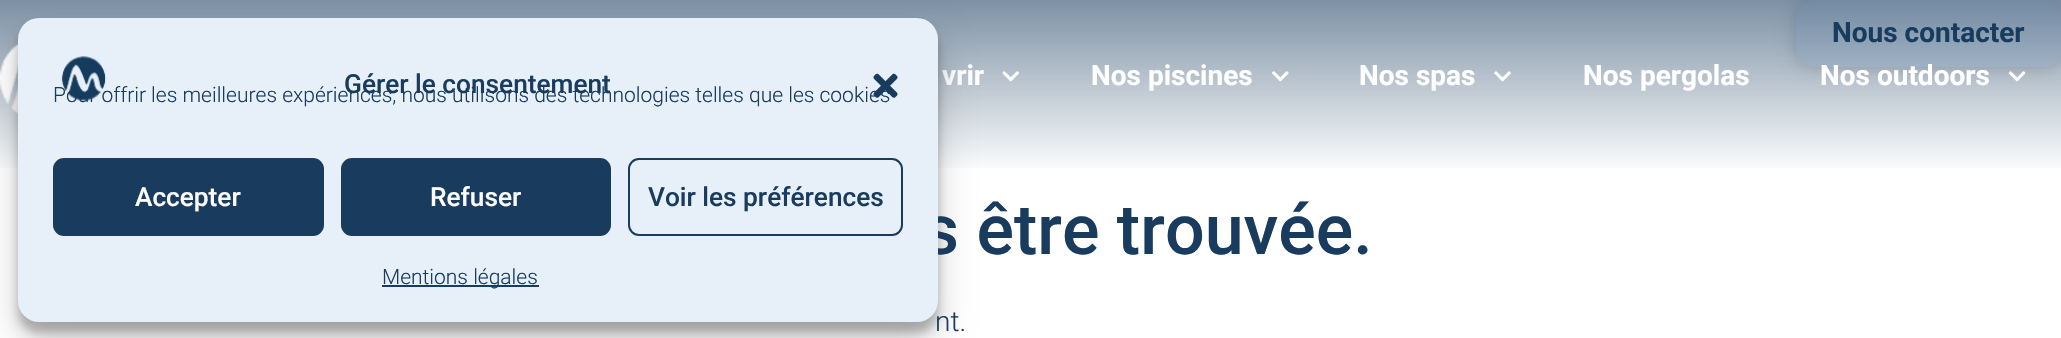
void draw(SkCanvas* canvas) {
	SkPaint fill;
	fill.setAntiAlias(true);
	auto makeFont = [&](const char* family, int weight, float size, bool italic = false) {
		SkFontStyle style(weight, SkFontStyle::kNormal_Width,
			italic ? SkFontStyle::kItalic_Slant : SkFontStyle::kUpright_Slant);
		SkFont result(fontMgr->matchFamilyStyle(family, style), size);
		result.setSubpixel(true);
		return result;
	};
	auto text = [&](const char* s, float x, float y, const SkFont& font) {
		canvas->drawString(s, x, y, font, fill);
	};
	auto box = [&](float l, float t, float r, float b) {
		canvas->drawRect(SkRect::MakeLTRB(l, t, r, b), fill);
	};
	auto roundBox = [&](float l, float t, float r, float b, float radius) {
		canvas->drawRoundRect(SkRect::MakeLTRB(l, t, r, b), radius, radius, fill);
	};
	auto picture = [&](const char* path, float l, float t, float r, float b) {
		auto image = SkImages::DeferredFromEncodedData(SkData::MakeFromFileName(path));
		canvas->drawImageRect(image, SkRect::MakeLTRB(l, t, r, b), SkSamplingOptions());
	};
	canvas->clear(0xFFFFFFFF);
	fill.setColor(0x33000000);
	fill.setMaskFilter(SkMaskFilter::MakeBlur(kNormal_SkBlurStyle, 9));
	canvas->drawRoundRect(SkRect::MakeLTRB(1796, 0, 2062, 67), 18, 18, fill);
	fill.setMaskFilter(nullptr);
	fill.setColor(0xFFE7EFF8);
	canvas->drawRoundRect(SkRect::MakeLTRB(1797, 1, 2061, 66), 17, 17, fill);
	fill.setStyle(SkPaint::kStroke_Style);
	fill.setStrokeWidth(2);
	canvas->drawRoundRect(SkRect::MakeLTRB(1797, 1, 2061, 66), 17, 17, fill);
	auto font1 = makeFont("Roboto", 700, 28);
	fill.setStyle(SkPaint::kFill_Style);
	fill.setColor(0xFF183B5E);
	text("Nous contacter", 1832, 42, font1);
	{
		const SkColor colors[] = {0x9C183B5E, 0x00183B5E};
		const float stops[] = {0, 1};
		const SkPoint ends[] = {{1031, -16}, {1031, 175}};
		fill.setShader(SkGradientShader::MakeLinear(ends, colors, stops, 2, SkTileMode::kClamp));
		fill.setAlpha(255);
	}
	box(0, 0, 2061, 168);
	picture("image0.png", 0, 43, 18, 116);
	fill.setShader(nullptr);
	fill.setColor(0xFFFFFFFF);
	text("vrir", 942, 85, font1);
	picture("image1.png", 1002, 71, 1019, 82);
	text("Nos piscines", 1091, 85, font1);
	picture("image2.png", 1272, 71, 1289, 82);
	text("Nos spas", 1359, 85, font1);
	picture("image3.png", 1494, 71, 1511, 82);
	text("Nos pergolas", 1583, 85, font1);
	text("Nos outdoors", 1820, 85, font1);
	picture("image4.png", 2008, 71, 2026, 82);
	fill.setColor(0x3B000000);
	fill.setMaskFilter(SkMaskFilter::MakeBlur(kNormal_SkBlurStyle, 5));
	canvas->drawRoundRect(SkRect::MakeLTRB(18, 28, 938, 333), 21, 21, fill);
	fill.setMaskFilter(nullptr);
	fill.setColor(0x30000000);
	fill.setMaskFilter(SkMaskFilter::MakeBlur(kNormal_SkBlurStyle, 17.5f));
	canvas->drawRoundRect(SkRect::MakeLTRB(18, 35, 938, 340), 21, 21, fill);
	fill.setMaskFilter(nullptr);
	auto font2 = makeFont("Roboto", 500, 70);
	fill.setColor(0xFF183B5E);
	text("s être trouvée.", 923, 254, font2);
	auto font3 = makeFont("Roboto", 300, 28);
	text("nt.", 935, 331, font3);
	fill.setColor(0xFFE7EFF8);
	roundBox(18, 18, 938, 322, 21);
	picture("image6.png", 873, 73, 898, 98);
	picture("image5.png", 61, 56, 106, 102);
	auto font4 = makeFont("Roboto", 300, 21);
	fill.setColor(0xFF183B5E);
	text("Pour offrir les meilleures expériences, nous utilisons des technologies telles que les cookies", 53, 102, font4);
	box(382, 285, 539, 287);
	text("Mentions légales", 382, 284, font4);
	fill.setStyle(SkPaint::kStroke_Style);
	canvas->drawRoundRect(SkRect::MakeLTRB(629, 159, 902, 235), 10, 10, fill);
	auto font5 = makeFont("Roboto", 500, 26.25f);
	fill.setStyle(SkPaint::kFill_Style);
	text("Voir les préférences", 648, 206, font5);
	canvas->drawRoundRect(SkRect::MakeLTRB(342, 159, 610, 235), 10, 10, fill);
	fill.setStyle(SkPaint::kStroke_Style);
	canvas->drawRoundRect(SkRect::MakeLTRB(342, 159, 610, 235), 10, 10, fill);
	fill.setStyle(SkPaint::kFill_Style);
	fill.setColor(0xFFFFFFFF);
	text("Refuser", 430, 206, font5);
	fill.setColor(0xFF183B5E);
	canvas->drawRoundRect(SkRect::MakeLTRB(54, 159, 323, 235), 10, 10, fill);
	fill.setStyle(SkPaint::kStroke_Style);
	canvas->drawRoundRect(SkRect::MakeLTRB(54, 159, 323, 235), 10, 10, fill);
	fill.setStyle(SkPaint::kFill_Style);
	fill.setColor(0xFFFFFFFF);
	text("Accepter", 135, 206, font5);
	fill.setColor(0xFF183B5E);
	text("Gérer le consentement", 344, 93, font5);
}
